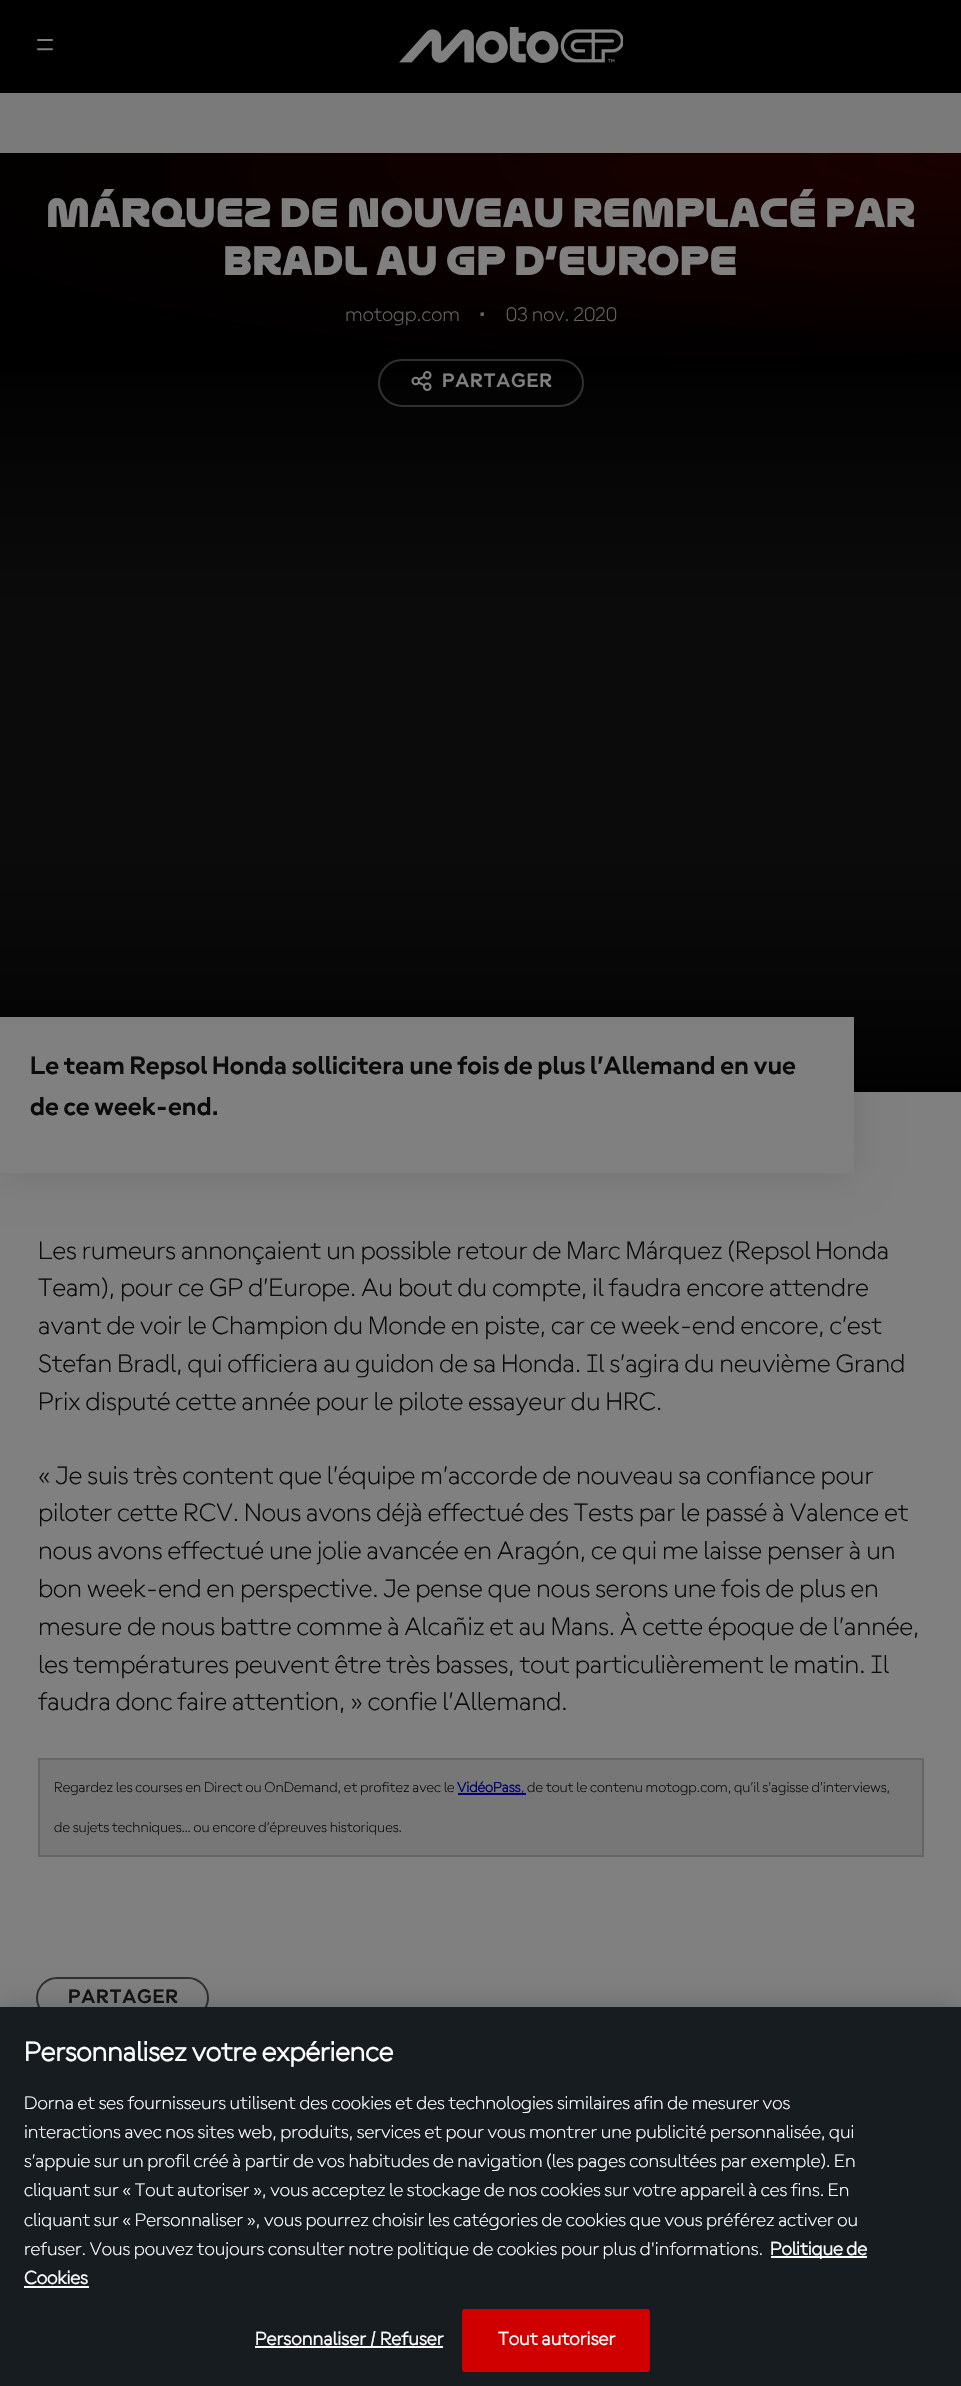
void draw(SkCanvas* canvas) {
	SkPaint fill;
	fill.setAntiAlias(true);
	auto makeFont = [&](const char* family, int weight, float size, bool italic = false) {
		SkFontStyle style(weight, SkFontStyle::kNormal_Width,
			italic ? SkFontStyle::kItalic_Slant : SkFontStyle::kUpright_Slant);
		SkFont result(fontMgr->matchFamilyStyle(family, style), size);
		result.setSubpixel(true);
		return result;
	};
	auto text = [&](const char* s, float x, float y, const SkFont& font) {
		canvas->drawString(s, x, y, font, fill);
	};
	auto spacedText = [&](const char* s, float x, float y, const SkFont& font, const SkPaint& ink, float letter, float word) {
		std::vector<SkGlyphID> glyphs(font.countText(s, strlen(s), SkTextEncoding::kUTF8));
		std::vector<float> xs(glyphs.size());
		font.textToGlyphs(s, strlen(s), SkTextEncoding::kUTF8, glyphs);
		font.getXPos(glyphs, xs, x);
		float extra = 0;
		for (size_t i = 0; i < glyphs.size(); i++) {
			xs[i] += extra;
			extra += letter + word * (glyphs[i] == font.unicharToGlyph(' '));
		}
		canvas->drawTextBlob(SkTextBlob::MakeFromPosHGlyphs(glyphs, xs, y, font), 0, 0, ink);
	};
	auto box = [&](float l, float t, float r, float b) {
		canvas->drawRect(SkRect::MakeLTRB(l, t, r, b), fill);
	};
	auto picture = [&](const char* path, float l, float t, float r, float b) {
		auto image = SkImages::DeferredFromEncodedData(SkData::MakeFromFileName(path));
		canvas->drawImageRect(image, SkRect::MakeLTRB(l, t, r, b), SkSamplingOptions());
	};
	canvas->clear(0xFF7A7A7A);
	fill.setColor(0xFF000000);
	box(0, 0, 961, 93);
	picture("image0.png", 37, 39, 53, 51);
	picture("image1.png", 399, 27, 623, 63);
	fill.setColor(0xFF808080);
	box(0, 1092, 961, 2007);
	{
		const SkColor colors[] = {0xFF0B0100, 0xFF000000};
		const float stops[] = {0, 1};
		SkMatrix m = SkMatrix::Translate(733, 175).preScale(969, 212);
		fill.setShader(SkGradientShader::MakeRadial({0, 0}, 1, colors, stops, 2, SkTileMode::kClamp, 0, &m));
		fill.setAlpha(255);
	}
	box(0, 153, 961, 371);
	{
		const SkColor colors[] = {0x3B4A0201, 0x004A0201};
		const float stops[] = {0, 1};
		SkMatrix m = SkMatrix::Translate(962, 160).preScale(931, 203);
		fill.setShader(SkGradientShader::MakeRadial({0, 0}, 1, colors, stops, 2, SkTileMode::kClamp, 0, &m));
		fill.setAlpha(255);
	}
	box(166, 153, 961, 333);
	{
		const SkColor colors[] = {0xFF000000, 0xFF040303, 0xFF0B0B0B};
		const float stops[] = {0.16f, 0.28f, 1};
		const SkPoint ends[] = {{481, 310}, {481, 611}};
		fill.setShader(SkGradientShader::MakeLinear(ends, colors, stops, 3, SkTileMode::kClamp));
		fill.setAlpha(255);
	}
	box(0, 371, 961, 611);
	fill.setStyle(SkPaint::kStroke_Style);
	fill.setStrokeWidth(2);
	fill.setShader(nullptr);
	fill.setColor(0xFF303030);
	canvas->drawRoundRect(SkRect::MakeLTRB(379, 360, 583, 406), 23, 23, fill);
	picture("image2.png", 411, 371, 432, 391);
	fill.setStyle(SkPaint::kFill_Style);
	fill.setColor(0xFF0B0B0B);
	box(0, 611, 961, 852);
	{
		const SkColor colors[] = {0xFF000000, 0xFF040303, 0xFF0B0B0B};
		const float stops[] = {0.16f, 0.28f, 1};
		const SkPoint ends[] = {{481, 1152}, {481, 852}};
		fill.setShader(SkGradientShader::MakeLinear(ends, colors, stops, 3, SkTileMode::kClamp));
		fill.setAlpha(255);
	}
	box(0, 852, 961, 1092);
	fill.setShader(nullptr);
	fill.setColor(0x1A000000);
	fill.setMaskFilter(SkMaskFilter::MakeBlur(kNormal_SkBlurStyle, 17));
	canvas->drawRect(SkRect::MakeLTRB(0, 1019, 854, 1175), fill);
	fill.setMaskFilter(nullptr);
	fill.setColor(0xFF808080);
	box(0, 1017, 854, 1173);
	fill.setColor(0xFF777777);
	canvas->drawRect(SkRect::MakeLTRB(39, 1759, 923, 1856), fill);
	fill.setStyle(SkPaint::kStroke_Style);
	fill.setColor(0xFF666666);
	canvas->drawRect(SkRect::MakeLTRB(39, 1759, 923, 1856), fill);
	fill.setStyle(SkPaint::kFill_Style);
	fill.setColor(0xFF000077);
	box(458, 1793, 526, 1795);
	fill.setStyle(SkPaint::kStroke_Style);
	fill.setColor(0xFF303030);
	canvas->drawRoundRect(SkRect::MakeLTRB(37, 1978, 208, 2018), 20, 20, fill);
	fill.setStyle(SkPaint::kFill_Style);
	fill.setColor(0x33000000);
	fill.setMaskFilter(SkMaskFilter::MakeBlur(kNormal_SkBlurStyle, 13.5f));
	canvas->drawRect(SkRect::MakeLTRB(0, 2007, 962, 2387), fill);
	fill.setMaskFilter(nullptr);
	fill.setColor(0xFF171C21);
	box(0, 2007, 961, 2386);
	fill.setColor(0xFFFFFFFF);
	box(771, 2256, 867, 2258);
	box(24, 2286, 89, 2288);
	box(255, 2346, 443, 2348);
	fill.setColor(0xFFD00000);
	canvas->drawRoundRect(SkRect::MakeLTRB(463, 2310, 649, 2371), 2, 2, fill);
	fill.setStyle(SkPaint::kStroke_Style);
	canvas->drawRoundRect(SkRect::MakeLTRB(463, 2310, 649, 2371), 2, 2, fill);
	auto font1 = makeFont("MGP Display", 700, 36);
	fill.setStyle(SkPaint::kFill_Style);
	fill.setColor(0xFF808080);
	text("Márquez de nouveau remplacé par", 46, 227, font1);
	text("Bradl au GP d’Europe", 223, 275, font1);
	auto font2 = makeFont("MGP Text", 300, 21);
	fill.setColor(0xFF636363);
	text("motogp.com", 345, 321, font2);
	text("•", 479, 321, font2);
	text("03 nov. 2020", 506, 321, font2);
	auto font3 = makeFont("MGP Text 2", 700, 21);
	fill.setColor(0xFF808080);
	spacedText("PARTAGER", 442, 387, font3, fill, 0.75f, 0);
	auto font4 = makeFont("MGP Text 2", 700, 27);
	fill.setColor(0xFF0B0B0B);
	text("Le team Repsol Honda sollicitera une fois de plus l’Allemand en vue", 30, 1074, font4);
	text("de ce week-end.", 30, 1115, font4);
	auto font5 = makeFont("MGP Text", 300, 27);
	text("Les rumeurs annonçaient un possible retour de Marc Márquez (Repsol Honda", 38, 1259, font5);
	text("Team), pour ce GP d’Europe. Au bout du compte, il faudra encore attendre", 38, 1296, font5);
	text("avant de voir le Champion du Monde en piste, car ce week-end encore, c’est", 38, 1334, font5);
	text("Stefan Bradl, qui officiera au guidon de sa Honda. Il s’agira du neuvième Grand", 38, 1372, font5);
	text("Prix disputé cette année pour le pilote essayeur du HRC.", 38, 1410, font5);
	text("« Je suis très content que l’équipe m’accorde de nouveau sa confiance pour", 38, 1484, font5);
	text("piloter cette RCV. Nous avons déjà effectué des Tests par le passé à Valence et", 38, 1521, font5);
	text("nous avons effectué une jolie avancée en Aragón, ce qui me laisse penser à un", 38, 1559, font5);
	text("bon week-end en perspective. Je pense que nous serons une fois de plus en", 38, 1597, font5);
	text("mesure de nous battre comme à Alcañiz et au Mans. À cette époque de l’année,", 38, 1635, font5);
	text("les températures peuvent être très basses, tout particulièrement le matin. Il", 38, 1673, font5);
	text("faudra donc faire attention, » confie l’Allemand.", 38, 1710, font5);
	auto font6 = makeFont("MGP Text", 300, 15);
	text("Regardez les courses en Direct ou OnDemand, et profitez avec le", 54, 1792, font6);
	auto font7 = makeFont("MGP Text", 700, 15);
	fill.setColor(0xFF000077);
	text("VidéoPass", 457, 1792, font7);
	text(",", 521, 1792, font6);
	fill.setColor(0xFF0B0B0B);
	text("de tout le contenu motogp.com, qu’il s’agisse d’interviews,", 527, 1792, font6);
	text("de sujets techniques… ou encore d’épreuves historiques.", 54, 1832, font6);
	fill.setColor(0xFF131313);
	spacedText("PARTAGER", 68, 2003, font3, fill, 0.75f, 0);
	auto font8 = makeFont("MGP Text", 700, 28.75f);
	fill.setColor(0xFFFFFFFF);
	text("Personnalisez votre expérience", 24, 2061, font8);
	auto font9 = makeFont("MGP Text", 300, 19.5f);
	text("Dorna et ses fournisseurs utilisent des cookies et des technologies similaires afin de mesurer vos", 24, 2109, font9);
	text("interactions avec nos sites web, produits, services et pour vous montrer une publicité personnalisée, qui", 24, 2138, font9);
	text("s’appuie sur un profil créé à partir de vos habitudes de navigation (les pages consultées par exemple). En", 24, 2167, font9);
	text("cliquant sur « Tout autoriser », vous acceptez le stockage de nos cookies sur votre appareil à ces fins. En", 24, 2196, font9);
	text("cliquant sur « Personnaliser », vous pourrez choisir les catégories de cookies que vous préférez activer ou", 24, 2226, font9);
	text("refuser. Vous pouvez toujours consulter notre politique de cookies pour plus d'informations.", 24, 2255, font9);
	auto font10 = makeFont("MGP Text", 700, 19.5f);
	text("Politique de", 770, 2255, font10);
	text("Cookies", 24, 2284, font10);
	spacedText("Personnaliser / Refuser", 255, 2345, font10, fill, 0.2f, 0);
	spacedText("Tout autoriser", 498, 2345, font10, fill, 0.2f, 0);
}
